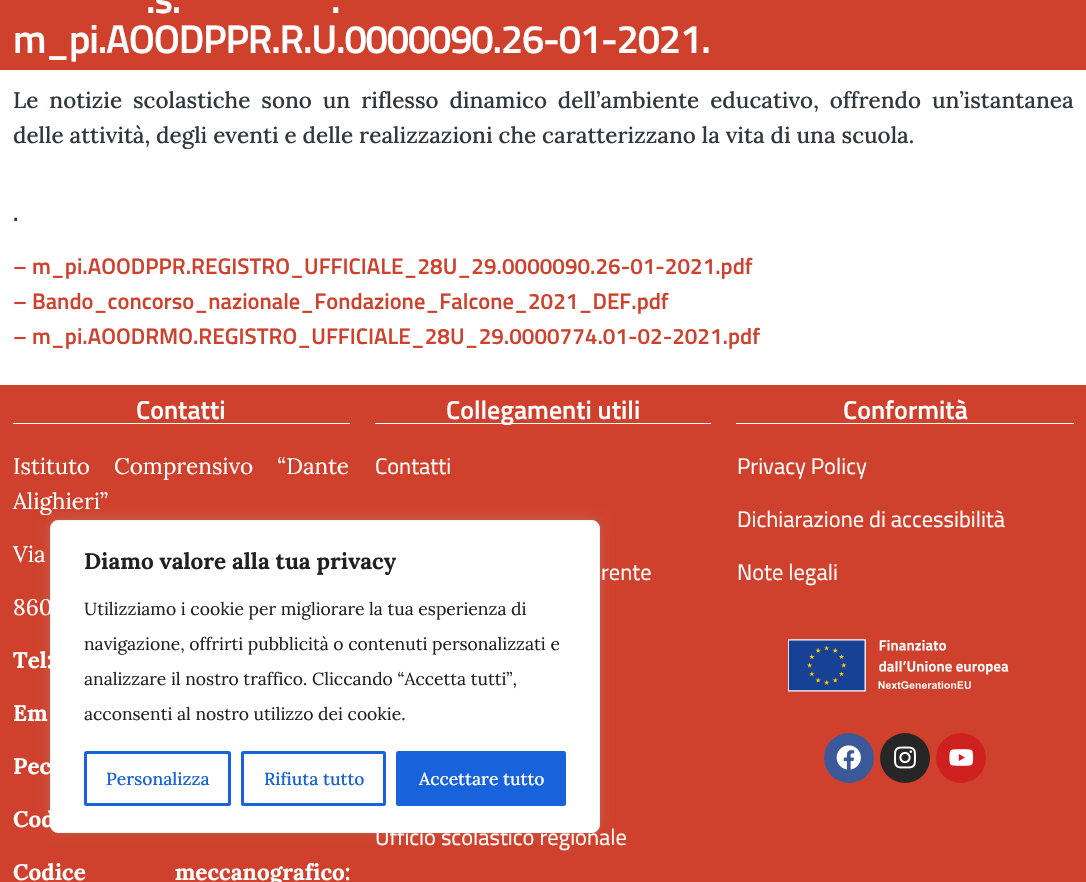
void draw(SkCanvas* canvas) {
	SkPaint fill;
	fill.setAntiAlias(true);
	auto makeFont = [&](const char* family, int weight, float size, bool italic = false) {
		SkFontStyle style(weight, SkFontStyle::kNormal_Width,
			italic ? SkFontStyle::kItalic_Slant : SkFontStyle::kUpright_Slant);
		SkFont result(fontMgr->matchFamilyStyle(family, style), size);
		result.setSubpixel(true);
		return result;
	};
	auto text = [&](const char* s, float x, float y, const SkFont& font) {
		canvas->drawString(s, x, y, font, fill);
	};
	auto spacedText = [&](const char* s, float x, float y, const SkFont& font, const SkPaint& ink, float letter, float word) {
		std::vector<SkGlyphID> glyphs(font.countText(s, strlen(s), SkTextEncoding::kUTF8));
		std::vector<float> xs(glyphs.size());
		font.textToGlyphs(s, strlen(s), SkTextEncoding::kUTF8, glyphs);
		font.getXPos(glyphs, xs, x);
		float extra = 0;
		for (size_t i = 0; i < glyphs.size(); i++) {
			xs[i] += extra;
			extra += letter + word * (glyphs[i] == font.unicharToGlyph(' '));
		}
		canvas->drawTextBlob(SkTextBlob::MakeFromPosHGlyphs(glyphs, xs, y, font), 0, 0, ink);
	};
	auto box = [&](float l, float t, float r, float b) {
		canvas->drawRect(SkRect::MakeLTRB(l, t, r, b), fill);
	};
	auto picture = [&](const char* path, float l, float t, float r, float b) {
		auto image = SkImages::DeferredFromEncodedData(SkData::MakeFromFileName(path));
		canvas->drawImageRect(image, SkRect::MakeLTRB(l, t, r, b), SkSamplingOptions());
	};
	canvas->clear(0xFFFFFFFF);
	fill.setColor(0xFFCF412C);
	box(0, 0, 1086, 70);
	box(0, 385, 1086, 882);
	fill.setColor(0xFFFFFFFF);
	box(13, 423, 350, 424);
	box(375, 423, 711, 424);
	box(736, 423, 1074, 424);
	picture("image0.png", 788, 639, 1009, 692);
	fill.setColor(0xFF3B5998);
	canvas->drawCircle(849, 758, 25, fill);
	picture("image1.png", 836, 745, 861, 770);
	fill.setColor(0xFF262626);
	canvas->drawCircle(905, 758, 25, fill);
	picture("image2.png", 894, 746, 916, 769);
	fill.setColor(0xFFCD201F);
	canvas->drawCircle(961, 758, 25, fill);
	picture("image3.png", 949, 749, 974, 766);
	fill.setColor(0x4DACABAB);
	fill.setMaskFilter(SkMaskFilter::MakeBlur(kNormal_SkBlurStyle, 6));
	canvas->drawRoundRect(SkRect::MakeLTRB(50, 519, 600, 831), 8, 8, fill);
	fill.setMaskFilter(nullptr);
	fill.setColor(0xFFFFFFFF);
	canvas->drawRoundRect(SkRect::MakeLTRB(50.5f, 520.5f, 599.5f, 832.5f), 7.5f, 7.5f, fill);
	fill.setStyle(SkPaint::kStroke_Style);
	fill.setStrokeWidth(1);
	fill.setColor(0xFFF4F4F4);
	canvas->drawRoundRect(SkRect::MakeLTRB(50.5f, 520.5f, 599.5f, 832.5f), 7.5f, 7.5f, fill);
	fill.setStrokeWidth(3);
	fill.setColor(0xFF1863DC);
	canvas->drawRoundRect(SkRect::MakeLTRB(85.5f, 752.5f, 229.5f, 804.5f), 1, 1, fill);
	canvas->drawRoundRect(SkRect::MakeLTRB(242.5f, 752.5f, 384.5f, 804.5f), 1, 1, fill);
	fill.setStyle(SkPaint::kFill_Style);
	canvas->drawRoundRect(SkRect::MakeLTRB(397.5f, 752.5f, 564.5f, 804.5f), 1, 1, fill);
	fill.setStyle(SkPaint::kStroke_Style);
	canvas->drawRoundRect(SkRect::MakeLTRB(397.5f, 752.5f, 564.5f, 804.5f), 1, 1, fill);
	auto font1 = makeFont("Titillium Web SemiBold", 600, 40);
	fill.setStyle(SkPaint::kFill_Style);
	fill.setColor(0xFFFFFFFF);
	spacedText(".s.", 146, 13, font1, fill, -1.25f, 0);
	spacedText(".", 331, 13, font1, fill, -1.25f, 0);
	spacedText("m_pi.AOODPPR.R.U.0000090.26-01-2021.", 13, 53, font1, fill, -1.25f, 0);
	auto font2 = makeFont("Lora", 500, 22.5f);
	fill.setColor(0xFF30373D);
	spacedText("Le notizie scolastiche sono un riflesso dinamico dell’ambiente educativo, offrendo un’istantanea", 13, 108, font2, fill, 0, 5);
	text("delle attività, degli eventi e delle realizzazioni che caratterizzano la vita di una scuola.", 13, 143, font2);
	auto font3 = makeFont("Titillium Web SemiBold", 600, 22.5f);
	text(".", 13, 221, font3);
	fill.setColor(0xFFCF412C);
	text("– m_pi.AOODPPR.REGISTRO_UFFICIALE_28U_29.0000090.26-01-2021.pdf", 13, 274, font3);
	text("– Bando_concorso_nazionale_Fondazione_Falcone_2021_DEF.pdf", 13, 309, font3);
	text("– m_pi.AOODRMO.REGISTRO_UFFICIALE_28U_29.0000774.01-02-2021.pdf", 13, 344, font3);
	auto font4 = makeFont("Titillium Web SemiBold", 600, 26);
	fill.setColor(0xFFFFFFFF);
	text("Contatti", 136, 419, font4);
	auto font5 = makeFont("Lora", 400, 22.5f);
	spacedText("Istituto Comprensivo “Dante", 13, 474, font5, fill, 0, 18);
	text("Alighieri”", 13, 509, font5);
	text("Via", 13, 562, font5);
	text("860", 13, 615, font5);
	auto font6 = makeFont("Lora", 700, 22.5f);
	text("Tel:", 13, 668, font6);
	text("Em", 13, 721, font6);
	text("Pec", 13, 774, font6);
	text("Cod", 13, 827, font6);
	spacedText("Codice meccanografico:", 13, 880, font6, fill, 0, 83);
	text("Collegamenti utili", 446, 419, font4);
	auto font7 = makeFont("Titillium Web", 400, 22.5f);
	text("Contatti", 375, 474, font7);
	text("rente", 601, 580, font7);
	text("Ufficio scolastico regionale", 375, 845, font7);
	text("Conformità", 843, 419, font4);
	text("Privacy Policy", 737, 474, font7);
	text("Dichiarazione di accessibilità", 737, 527, font7);
	text("Note legali", 737, 580, font7);
	fill.setColor(0xFF212121);
	text("Diamo valore alla tua privacy", 84, 569, font6);
	auto font8 = makeFont("Lora", 400, 17.5f);
	text("Utilizziamo i cookie per migliorare la tua esperienza di", 84, 615, font8);
	text("navigazione, offrirti pubblicità o contenuti personalizzati e", 84, 650, font8);
	text("analizzare il nostro traffico. Cliccando “Accetta tutti”,", 84, 685, font8);
	text("acconsenti al nostro utilizzo dei cookie.", 84, 720, font8);
	auto font9 = makeFont("Lora", 500, 17.5f);
	fill.setColor(0xFF1863DC);
	text("Personalizza", 106, 785, font9);
	text("Rifiuta tutto", 264, 785, font9);
	fill.setColor(0xFFFFFFFF);
	text("Accettare tutto", 419, 785, font9);
}
